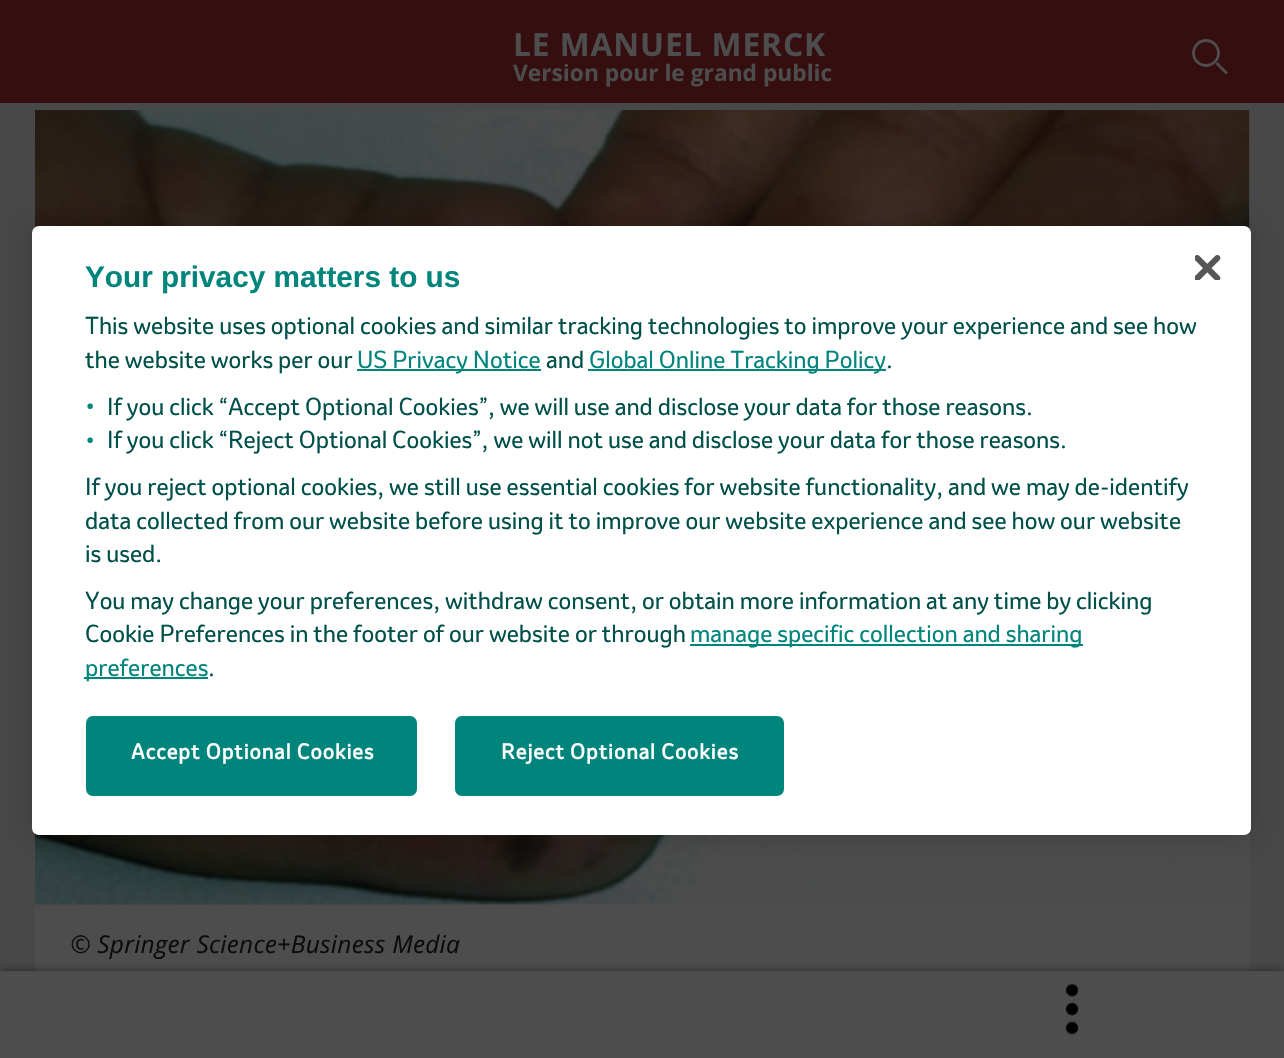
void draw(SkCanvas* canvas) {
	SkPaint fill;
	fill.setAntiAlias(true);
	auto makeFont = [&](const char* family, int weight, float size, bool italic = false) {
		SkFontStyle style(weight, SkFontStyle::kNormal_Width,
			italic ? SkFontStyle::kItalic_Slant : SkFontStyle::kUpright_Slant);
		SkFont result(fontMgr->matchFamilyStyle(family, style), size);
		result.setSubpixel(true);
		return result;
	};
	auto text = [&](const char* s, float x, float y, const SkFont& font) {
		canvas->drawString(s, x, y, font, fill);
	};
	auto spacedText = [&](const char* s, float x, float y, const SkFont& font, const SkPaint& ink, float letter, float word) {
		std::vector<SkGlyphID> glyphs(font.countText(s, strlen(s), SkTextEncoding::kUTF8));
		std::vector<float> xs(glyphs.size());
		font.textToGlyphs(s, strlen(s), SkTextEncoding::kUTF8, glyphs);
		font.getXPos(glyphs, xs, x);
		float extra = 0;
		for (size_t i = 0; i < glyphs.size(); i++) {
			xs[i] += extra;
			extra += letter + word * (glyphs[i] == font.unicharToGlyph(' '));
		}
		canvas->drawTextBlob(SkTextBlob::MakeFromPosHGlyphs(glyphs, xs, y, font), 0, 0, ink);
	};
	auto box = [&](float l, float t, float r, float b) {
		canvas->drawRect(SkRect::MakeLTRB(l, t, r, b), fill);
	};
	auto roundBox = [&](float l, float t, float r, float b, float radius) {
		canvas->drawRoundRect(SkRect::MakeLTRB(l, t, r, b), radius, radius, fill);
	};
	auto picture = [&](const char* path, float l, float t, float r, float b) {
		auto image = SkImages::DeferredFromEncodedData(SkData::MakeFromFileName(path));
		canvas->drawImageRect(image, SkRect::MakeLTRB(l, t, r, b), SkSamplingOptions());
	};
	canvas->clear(0xFF484848);
	fill.setColor(0xFF350E0F);
	box(0, 0, 1284, 103);
	fill.setStyle(SkPaint::kStroke_Style);
	fill.setStrokeWidth(2.8f);
	fill.setColor(0xFF4D4D4D);
	canvas->drawCircle(1206, 53, 12.5f, fill);
	canvas->drawPath(SkPathBuilder().moveTo(1227, 73.5f).lineTo(1216.5f, 63).detach(), fill);
	fill.setStyle(SkPaint::kFill_Style);
	box(35, 110, 1250, 971);
	picture("image0.png", 35, 110, 1250, 905);
	fill.setColor(0x80000000);
	fill.setMaskFilter(SkMaskFilter::MakeBlur(kNormal_SkBlurStyle, 4.5f));
	canvas->drawRect(SkRect::MakeLTRB(0, 971, 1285, 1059), fill);
	fill.setMaskFilter(nullptr);
	fill.setColor(0xFF4D4D4D);
	box(0, 971, 1284, 1058);
	picture("image1.png", 1065, 983, 1079, 1035);
	fill.setColor(0x33000000);
	fill.setMaskFilter(SkMaskFilter::MakeBlur(kNormal_SkBlurStyle, 16));
	canvas->drawRoundRect(SkRect::MakeLTRB(32, 226, 1251, 835), 7, 7, fill);
	fill.setMaskFilter(nullptr);
	fill.setColor(0xFFFFFFFF);
	roundBox(32, 226, 1251, 835, 7);
	fill.setColor(0xFF00857C);
	box(357, 369, 541, 371);
	box(588, 369, 886, 371);
	box(690, 644, 1083, 646);
	box(84, 677, 208, 679);
	picture("image2.png", 1195, 255, 1221, 280);
	canvas->drawRoundRect(SkRect::MakeLTRB(87, 717, 416, 795), 6, 6, fill);
	fill.setStyle(SkPaint::kStroke_Style);
	fill.setStrokeWidth(2);
	canvas->drawRoundRect(SkRect::MakeLTRB(87, 717, 416, 795), 6, 6, fill);
	fill.setStyle(SkPaint::kFill_Style);
	canvas->drawRoundRect(SkRect::MakeLTRB(456, 717, 783, 795), 6, 6, fill);
	fill.setStyle(SkPaint::kStroke_Style);
	canvas->drawRoundRect(SkRect::MakeLTRB(456, 717, 783, 795), 6, 6, fill);
	auto font1 = makeFont("Open Sans", 700, 31.75f);
	fill.setStyle(SkPaint::kFill_Style);
	fill.setColor(0xFF4D4D4D);
	spacedText("LE MANUEL MERCK", 513, 56, font1, fill, 0.9f, 0);
	auto font2 = makeFont("Open Sans", 700, 22.75f);
	text("Version pour le grand public", 513, 81, font2);
	auto font3 = makeFont("Open Sans", 400, 24.5f, true);
	fill.setColor(0xFF0A0B0C);
	spacedText("© Springer Science+Business Media", 70, 953, font3, fill, 0.25f, 0);
	auto font4 = makeFont("Liberation Sans", 700, 29.75f);
	fill.setColor(0xFF00857C);
	text("Your privacy matters to us", 85, 287, font4);
	auto font5 = makeFont("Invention", 400, 22.75f);
	fill.setColor(0xFF00504A);
	text("This website uses optional cookies and similar tracking technologies to improve your experience and see how", 85, 334, font5);
	text("the website works per our", 85, 368, font5);
	fill.setColor(0xFF00857C);
	text("US Privacy Notice", 357, 368, font5);
	fill.setColor(0xFF00504A);
	text("and", 546, 368, font5);
	fill.setColor(0xFF00857C);
	text("Global Online Tracking Policy", 589, 368, font5);
	fill.setColor(0xFF00504A);
	text(".", 886, 368, font5);
	auto font6 = makeFont("Invention", 400, 27);
	fill.setColor(0xFF00857C);
	text("•", 85, 414, font6);
	fill.setColor(0xFF00504A);
	text("If you click “Accept Optional Cookies”, we will use and disclose your data for those reasons.", 107, 415, font5);
	fill.setColor(0xFF00857C);
	text("•", 85, 448, font6);
	fill.setColor(0xFF00504A);
	text("If you click “Reject Optional Cookies”, we will not use and disclose your data for those reasons.", 107, 448, font5);
	text("If you reject optional cookies, we still use essential cookies for website functionality, and we may de-identify", 85, 495, font5);
	text("data collected from our website before using it to improve our website experience and see how our website", 85, 529, font5);
	text("is used.", 85, 562, font5);
	text("You may change your preferences, withdraw consent, or obtain more information at any time by clicking", 85, 609, font5);
	text("Cookie Preferences in the footer of our website or through", 85, 642, font5);
	fill.setColor(0xFF00857C);
	text("manage specific collection and sharing", 690, 642, font5);
	text("preferences", 85, 676, font5);
	fill.setColor(0xFF00504A);
	text(".", 208, 676, font5);
	auto font7 = makeFont("Invention", 700, 20);
	fill.setColor(0xFFFFFFFF);
	spacedText("Accept Optional Cookies", 131, 759, font7, fill, 1, 0);
	spacedText("Reject Optional Cookies", 501, 759, font7, fill, 1, 0);
}
